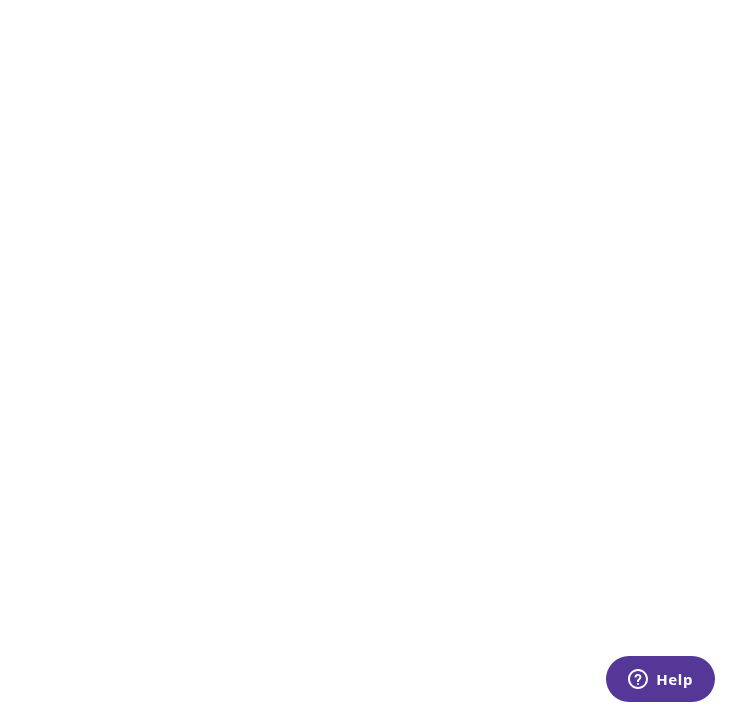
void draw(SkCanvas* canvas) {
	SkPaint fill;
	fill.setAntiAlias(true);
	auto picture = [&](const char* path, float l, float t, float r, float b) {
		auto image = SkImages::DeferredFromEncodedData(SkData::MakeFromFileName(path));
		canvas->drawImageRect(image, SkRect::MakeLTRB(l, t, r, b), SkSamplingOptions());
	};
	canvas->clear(0xFFFFFFFF);
	picture("image0.png", 606, 656, 715, 702);
}
